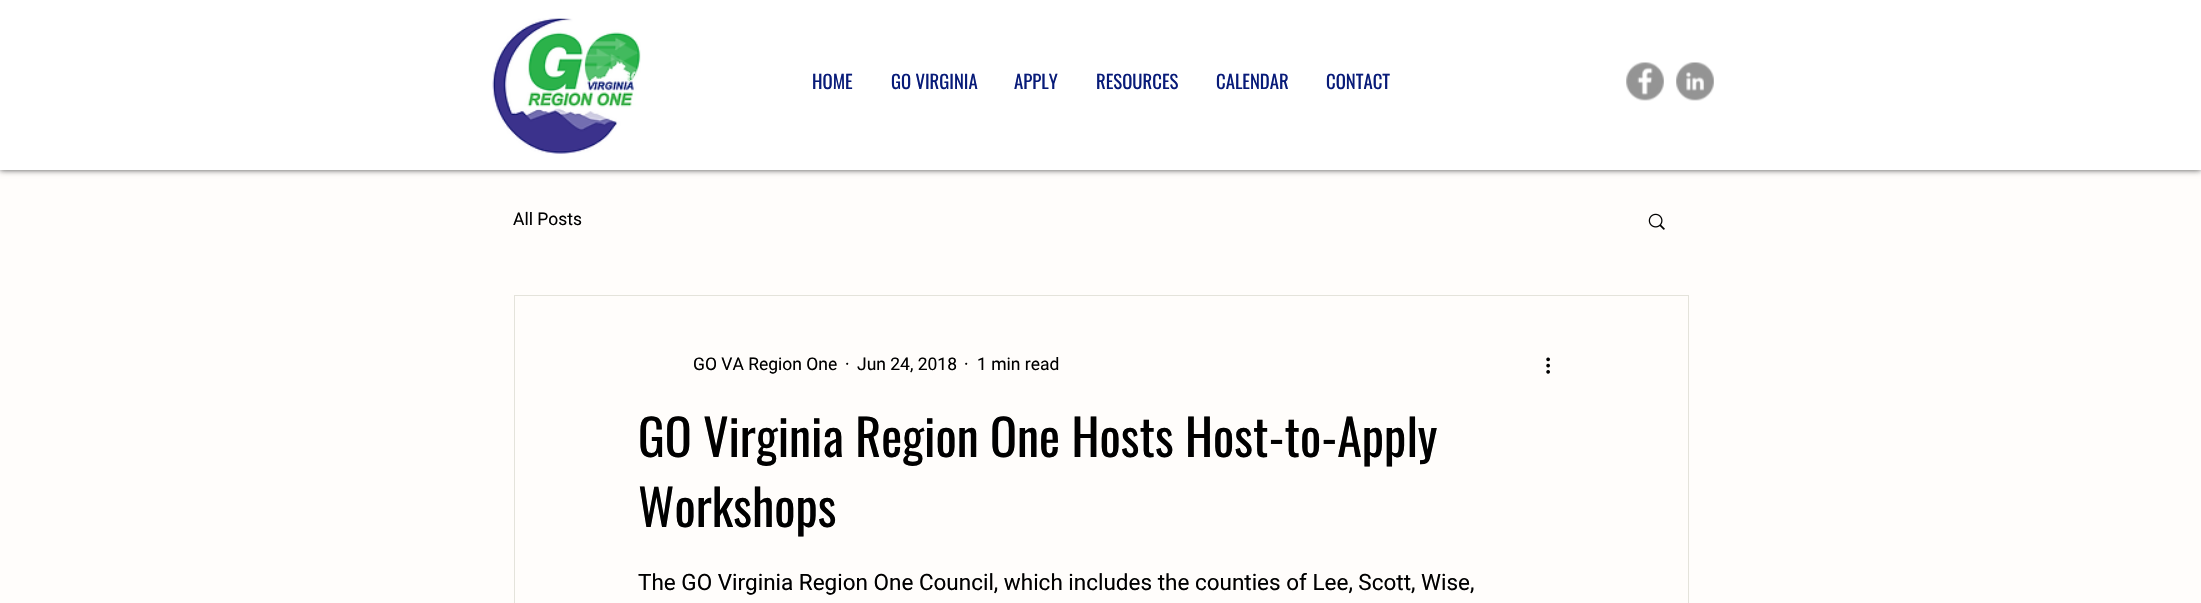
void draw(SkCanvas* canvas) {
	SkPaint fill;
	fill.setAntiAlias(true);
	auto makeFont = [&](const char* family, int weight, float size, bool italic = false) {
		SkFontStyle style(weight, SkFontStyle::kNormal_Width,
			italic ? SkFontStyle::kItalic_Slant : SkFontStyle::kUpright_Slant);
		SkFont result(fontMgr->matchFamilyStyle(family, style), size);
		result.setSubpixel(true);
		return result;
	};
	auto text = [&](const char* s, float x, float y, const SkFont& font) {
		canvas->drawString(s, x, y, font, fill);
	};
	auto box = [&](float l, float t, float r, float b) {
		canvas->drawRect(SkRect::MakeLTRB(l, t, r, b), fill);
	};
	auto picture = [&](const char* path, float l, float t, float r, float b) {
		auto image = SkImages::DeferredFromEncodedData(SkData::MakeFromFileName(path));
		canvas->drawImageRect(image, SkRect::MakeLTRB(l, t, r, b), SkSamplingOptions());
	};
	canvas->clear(0xFFFFFDFB);
	fill.setColor(0xB3000000);
	fill.setMaskFilter(SkMaskFilter::MakeBlur(kNormal_SkBlurStyle, 3));
	canvas->drawRect(SkRect::MakeLTRB(0, 0, 2201, 170), fill);
	fill.setMaskFilter(nullptr);
	fill.setColor(0xFFFFFFFF);
	box(0, 0, 2201, 170);
	picture("image0.png", 492, 18, 641, 154);
	picture("image1.png", 1626, 62, 1664, 101);
	picture("image2.png", 1676, 62, 1714, 101);
	picture("image3.png", 1648, 213, 1665, 230);
	fill.setStyle(SkPaint::kStroke_Style);
	fill.setStrokeWidth(1);
	fill.setColor(0xFFE4E3DB);
	canvas->drawRect(SkRect::MakeLTRB(514.5f, 295.5f, 1688.5f, 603.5f), fill);
	picture("image4.png", 1546, 357, 1550, 374);
	auto font1 = makeFont("Oswald", 400, 18.75f);
	fill.setStyle(SkPaint::kFill_Style);
	fill.setColor(0xFF081B79);
	text("HOME", 812, 89, font1);
	text("GO VIRGINIA", 891, 89, font1);
	text("APPLY", 1014, 89, font1);
	text("RESOURCES", 1096, 89, font1);
	text("CALENDAR", 1216, 89, font1);
	text("CONTACT", 1326, 89, font1);
	auto font2 = makeFont("Roboto", 400, 17.5f);
	fill.setColor(0xFF000000);
	text("All Posts", 513, 225, font2);
	text("GO VA Region One", 693, 370, font2);
	text("·", 845, 370, font2);
	text("Jun 24, 2018", 857, 370, font2);
	text("·", 964, 370, font2);
	text("1 min read", 977, 370, font2);
	auto font3 = makeFont("Oswald", 400, 50);
	text("GO Virginia Region One Hosts Host-to-Apply", 638, 457, font3);
	text("Workshops", 638, 527, font3);
	auto font4 = makeFont("Roboto", 400, 22.5f);
	text("The GO Virginia Region One Council, which includes the counties of Lee, Scott, Wise,", 638, 590, font4);
}
